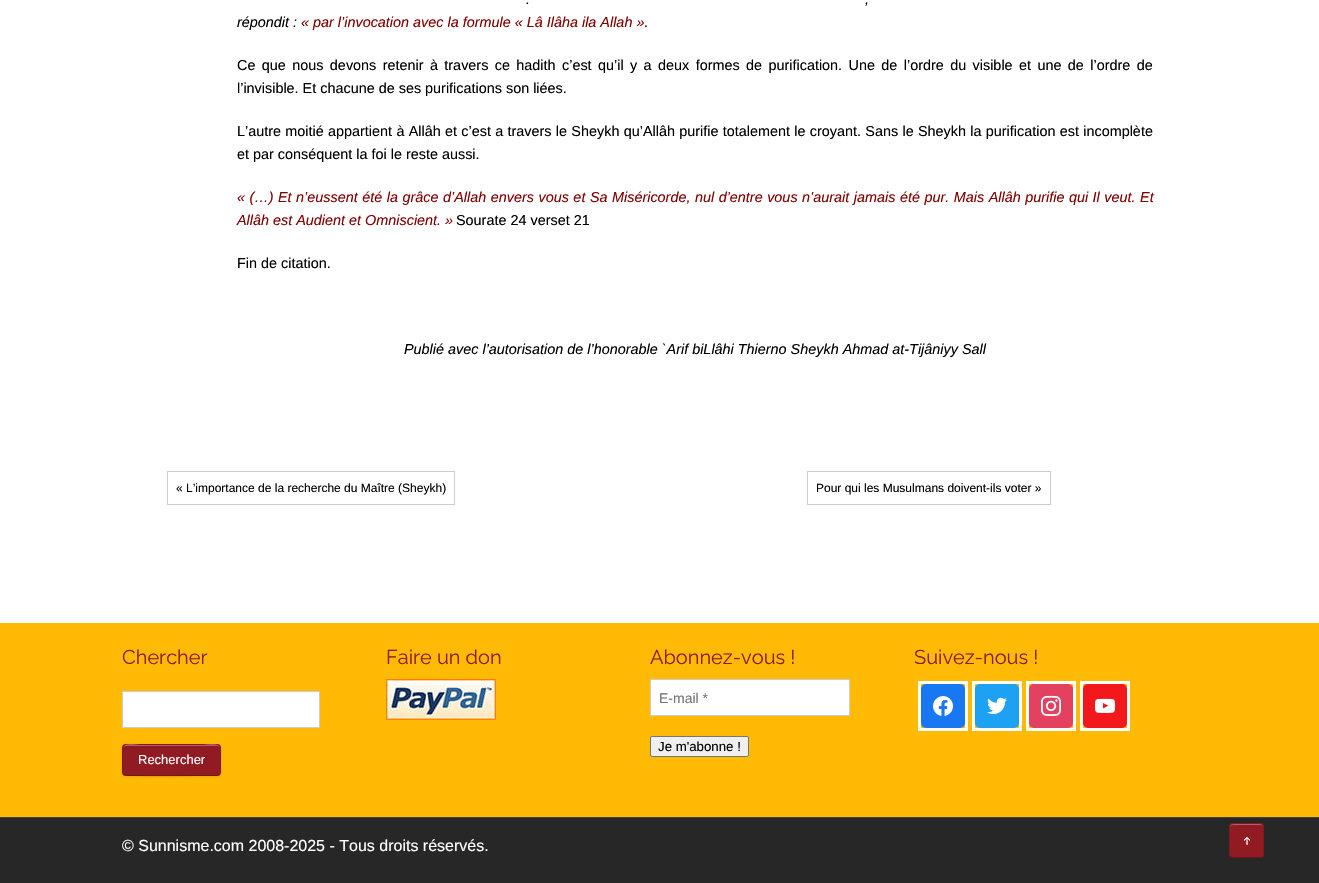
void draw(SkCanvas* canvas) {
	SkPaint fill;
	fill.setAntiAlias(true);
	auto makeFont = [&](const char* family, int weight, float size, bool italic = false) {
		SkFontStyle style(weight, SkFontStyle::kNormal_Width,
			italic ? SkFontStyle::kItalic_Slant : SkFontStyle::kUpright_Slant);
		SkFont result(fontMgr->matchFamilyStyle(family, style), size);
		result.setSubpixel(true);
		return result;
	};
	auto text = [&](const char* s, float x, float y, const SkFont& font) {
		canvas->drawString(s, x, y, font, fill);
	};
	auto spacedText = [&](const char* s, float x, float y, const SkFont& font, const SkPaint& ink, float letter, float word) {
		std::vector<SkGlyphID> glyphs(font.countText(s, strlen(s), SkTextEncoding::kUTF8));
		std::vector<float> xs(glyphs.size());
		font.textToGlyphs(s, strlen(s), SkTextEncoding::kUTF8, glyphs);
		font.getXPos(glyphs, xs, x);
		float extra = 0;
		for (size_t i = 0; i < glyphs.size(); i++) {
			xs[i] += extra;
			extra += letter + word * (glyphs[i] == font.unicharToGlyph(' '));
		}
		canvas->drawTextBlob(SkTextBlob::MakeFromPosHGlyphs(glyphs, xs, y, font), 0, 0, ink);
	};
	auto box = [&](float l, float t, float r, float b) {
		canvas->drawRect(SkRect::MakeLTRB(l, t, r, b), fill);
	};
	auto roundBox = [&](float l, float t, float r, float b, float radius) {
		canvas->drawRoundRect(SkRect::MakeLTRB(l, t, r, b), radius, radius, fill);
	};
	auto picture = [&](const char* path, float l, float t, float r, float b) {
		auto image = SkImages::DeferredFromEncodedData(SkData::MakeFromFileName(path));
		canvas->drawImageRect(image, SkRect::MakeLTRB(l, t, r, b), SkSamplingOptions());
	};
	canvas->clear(0xFFFFFFFF);
	fill.setStyle(SkPaint::kStroke_Style);
	fill.setStrokeWidth(1);
	fill.setColor(0xFFCCCCCC);
	canvas->drawRect(SkRect::MakeLTRB(167.5f, 471.5f, 454.5f, 504.5f), fill);
	canvas->drawRect(SkRect::MakeLTRB(807.5f, 471.5f, 1050.5f, 504.5f), fill);
	fill.setStyle(SkPaint::kFill_Style);
	fill.setColor(0xFFFFBA05);
	box(0, 623, 1319, 817);
	fill.setColor(0xFF3F3F3F);
	box(0, 817, 1319, 818);
	fill.setColor(0xFFFFFFFF);
	canvas->drawRect(SkRect::MakeLTRB(122.5f, 691.5f, 319.5f, 727.5f), fill);
	fill.setStyle(SkPaint::kStroke_Style);
	fill.setColor(0xFFCCCCCC);
	canvas->drawRect(SkRect::MakeLTRB(122.5f, 691.5f, 319.5f, 727.5f), fill);
	fill.setStyle(SkPaint::kFill_Style);
	fill.setColor(0x1A000000);
	fill.setMaskFilter(SkMaskFilter::MakeBlur(kNormal_SkBlurStyle, 1.5f));
	canvas->drawRoundRect(SkRect::MakeLTRB(122, 745, 221, 777), 4, 4, fill);
	fill.setMaskFilter(nullptr);
	fill.setColor(0xFF911B23);
	roundBox(122, 744, 221, 776, 4);
	fill.setColor(0xFFB25F65);
	canvas->drawPath(SkPathBuilder().moveTo(126, 746).lineTo(217, 746).cubicTo(219, 746, 220, 747, 220, 749).cubicTo(220, 741, 205, 745, 202, 745).lineTo(141, 745).cubicTo(138, 745, 123, 741, 123, 749).cubicTo(123, 747, 124, 746, 126, 746).close().detach(), fill);
	fill.setStyle(SkPaint::kStroke_Style);
	fill.setColor(0x40000000);
	canvas->drawPath(SkPathBuilder().moveTo(219.5f, 774.5f).lineTo(217, 775.5f).lineTo(202, 775.5f).cubicTo(193, 775.5f, 126, 776.5f, 124, 774.5f).lineTo(123.5f, 774.5f).detach(), fill);
	fill.setColor(0x1A000000);
	canvas->drawPath(SkPathBuilder().moveTo(123.5f, 774.5f).cubicTo(121.5f, 772, 122.5f, 763, 122.5f, 760).cubicTo(122.5f, 741, 120, 744.5f, 141, 744.5f).lineTo(202, 744.5f).cubicTo(224.5f, 744.5f, 220.5f, 741.5f, 220.5f, 764).cubicTo(220.5f, 767, 222, 772, 219.5f, 774.5f).detach(), fill);
	picture("image0.png", 386, 679, 496, 720);
	fill.setStyle(SkPaint::kFill_Style);
	fill.setColor(0xFFFFFFFF);
	canvas->drawRect(SkRect::MakeLTRB(650.5f, 679.5f, 849.5f, 715.5f), fill);
	fill.setStyle(SkPaint::kStroke_Style);
	fill.setColor(0xFFCCCCCC);
	canvas->drawRect(SkRect::MakeLTRB(650.5f, 679.5f, 849.5f, 715.5f), fill);
	fill.setStyle(SkPaint::kFill_Style);
	fill.setColor(0xFFEFEFEF);
	canvas->drawRoundRect(SkRect::MakeLTRB(650.5f, 736.5f, 748.5f, 756.5f), 1.5f, 1.5f, fill);
	fill.setStyle(SkPaint::kStroke_Style);
	fill.setColor(0xFF767676);
	canvas->drawRoundRect(SkRect::MakeLTRB(650.5f, 736.5f, 748.5f, 756.5f), 1.5f, 1.5f, fill);
	fill.setStyle(SkPaint::kFill_Style);
	fill.setColor(0xFF1877F2);
	roundBox(921, 684, 965, 728, 5);
	picture("image1.png", 933, 696, 953, 716);
	fill.setStyle(SkPaint::kStroke_Style);
	fill.setStrokeWidth(3);
	fill.setColor(0xFFFFFFFF);
	canvas->drawRect(SkRect::MakeLTRB(919.5f, 682.5f, 966.5f, 729.5f), fill);
	fill.setStyle(SkPaint::kFill_Style);
	fill.setColor(0xFF1DA1F2);
	roundBox(975, 684, 1019, 728, 5);
	picture("image2.png", 987, 697, 1007, 715);
	fill.setStyle(SkPaint::kStroke_Style);
	fill.setColor(0xFFFFFFFF);
	canvas->drawRect(SkRect::MakeLTRB(973.5f, 682.5f, 1020.5f, 729.5f), fill);
	fill.setStyle(SkPaint::kFill_Style);
	fill.setColor(0xFFE4405F);
	roundBox(1029, 684, 1073, 728, 5);
	picture("image3.png", 1041, 695, 1061, 716);
	fill.setStyle(SkPaint::kStroke_Style);
	fill.setColor(0xFFFFFFFF);
	canvas->drawRect(SkRect::MakeLTRB(1027.5f, 682.5f, 1074.5f, 729.5f), fill);
	fill.setStyle(SkPaint::kFill_Style);
	fill.setColor(0xFFF2181B);
	roundBox(1083, 684, 1127, 728, 5);
	picture("image4.png", 1095, 698, 1116, 713);
	fill.setStyle(SkPaint::kStroke_Style);
	fill.setColor(0xFFFFFFFF);
	canvas->drawRect(SkRect::MakeLTRB(1081.5f, 682.5f, 1128.5f, 729.5f), fill);
	fill.setStyle(SkPaint::kFill_Style);
	fill.setColor(0xFF272727);
	box(0, 818, 1319, 883);
	fill.setColor(0xFF911B23);
	roundBox(1229, 823, 1264, 858, 4);
	picture("image5.png", 1244, 837, 1250, 845);
	fill.setColor(0xFFB25F65);
	canvas->drawPath(SkPathBuilder().moveTo(1233, 825).lineTo(1260, 825).cubicTo(1262, 825, 1263, 826, 1263, 828).cubicTo(1263, 823, 1259.5f, 824, 1255.5f, 824).lineTo(1237.5f, 824).cubicTo(1233.5f, 824, 1230, 823, 1230, 828).cubicTo(1230, 826, 1231, 825, 1233, 825).close().detach(), fill);
	fill.setStyle(SkPaint::kStroke_Style);
	fill.setStrokeWidth(1);
	fill.setColor(0x40000000);
	canvas->drawPath(SkPathBuilder().moveTo(1262.5f, 856.5f).cubicTo(1262, 857, 1261, 857.5f, 1260, 857.5f).lineTo(1233, 857.5f).cubicTo(1232, 857.5f, 1231, 857, 1230.5f, 856.5f).detach(), fill);
	fill.setColor(0x1A000000);
	canvas->drawPath(SkPathBuilder().moveTo(1230.5f, 856.5f).cubicTo(1229, 855, 1229.5f, 851.5f, 1229.5f, 849.5f).lineTo(1229.5f, 840.5f).cubicTo(1229.5f, 820.5f, 1226.5f, 823.5f, 1246.5f, 823.5f).cubicTo(1266.5f, 823.5f, 1263.5f, 820.5f, 1263.5f, 840.5f).lineTo(1263.5f, 849.5f).cubicTo(1263.5f, 851.5f, 1264, 855, 1262.5f, 856.5f).detach(), fill);
	auto font1 = makeFont("Liberation Sans", 400, 14.4f, true);
	fill.setStyle(SkPaint::kFill_Style);
	fill.setColor(0xFF000000);
	spacedText(".", 526, 4, font1, fill, 0, 1);
	spacedText(",", 865, 4, font1, fill, 0, 1);
	text("répondit :", 237, 27, font1);
	fill.setColor(0xFF800000);
	text("« par l’invocation avec la formule « Lâ Ilâha ila Allah »", 301, 27, font1);
	auto font2 = makeFont("Liberation Sans", 400, 14.4f);
	fill.setColor(0xFF000000);
	text(".", 644, 27, font2);
	spacedText("Ce que nous devons retenir à travers ce hadith c’est qu’il y a deux formes de purification. Une de l’ordre du visible et une de l’ordre de", 237, 70, font2, fill, 0, 2.4f);
	text("l’invisible. Et chacune de ses purifications son liées.", 237, 93, font2);
	spacedText("L’autre moitié appartient à Allâh et c’est a travers le Sheykh qu’Allâh purifie totalement le croyant. Sans le Sheykh la purification est incomplète", 237, 136, font2, fill, 0, 0.3f);
	text("et par conséquent la foi le reste aussi.", 237, 159, font2);
	fill.setColor(0xFF800000);
	spacedText("« (…) Et n’eussent été la grâce d’Allah envers vous et Sa Miséricorde, nul d’entre vous n’aurait jamais été pur. Mais Allâh purifie qui Il veut. Et", 237, 202, font1, fill, 0, 0.5f);
	text("Allâh est Audient et Omniscient. »", 237, 225, font1);
	fill.setColor(0xFF000000);
	text("Sourate 24 verset 21", 456, 225, font2);
	text("Fin de citation.", 237, 268, font2);
	text("Publié avec l’autorisation de l’honorable `Arif biLlâhi Thierno Sheykh Ahmad at-Tijâniyy Sall", 404, 354, font1);
	auto font3 = makeFont("Liberation Sans", 400, 12);
	text("« L’importance de la recherche du Maître (Sheykh)", 176, 492, font3);
	text("Pour qui les Musulmans doivent-ils voter »", 816, 492, font3);
	auto font4 = makeFont("Raleway", 100, 20);
	fill.setColor(0xFF911B23);
	text("Chercher", 122, 664, font4);
	auto font5 = makeFont("Liberation Sans", 400, 13);
	fill.setColor(0xFFFFFFFF);
	text("Rechercher", 138, 764, font5);
	fill.setColor(0xFF911B23);
	text("Faire un don", 386, 664, font4);
	text("Abonnez-vous !", 650, 664, font4);
	auto font6 = makeFont("Liberation Sans", 400, 14);
	fill.setColor(0xFF757575);
	text("E-mail *", 659, 703, font6);
	auto font7 = makeFont("Liberation Sans", 400, 13.25f);
	fill.setColor(0xFF000000);
	text("Je m'abonne !", 658, 751, font7);
	fill.setColor(0xFF911B23);
	text("Suivez-nous !", 914, 664, font4);
	auto font8 = makeFont("Liberation Sans", 400, 16);
	fill.setColor(0xFFFFFFFF);
	text("© Sunnisme.com 2008-2025 - Tous droits réservés.", 122, 851, font8);
}
